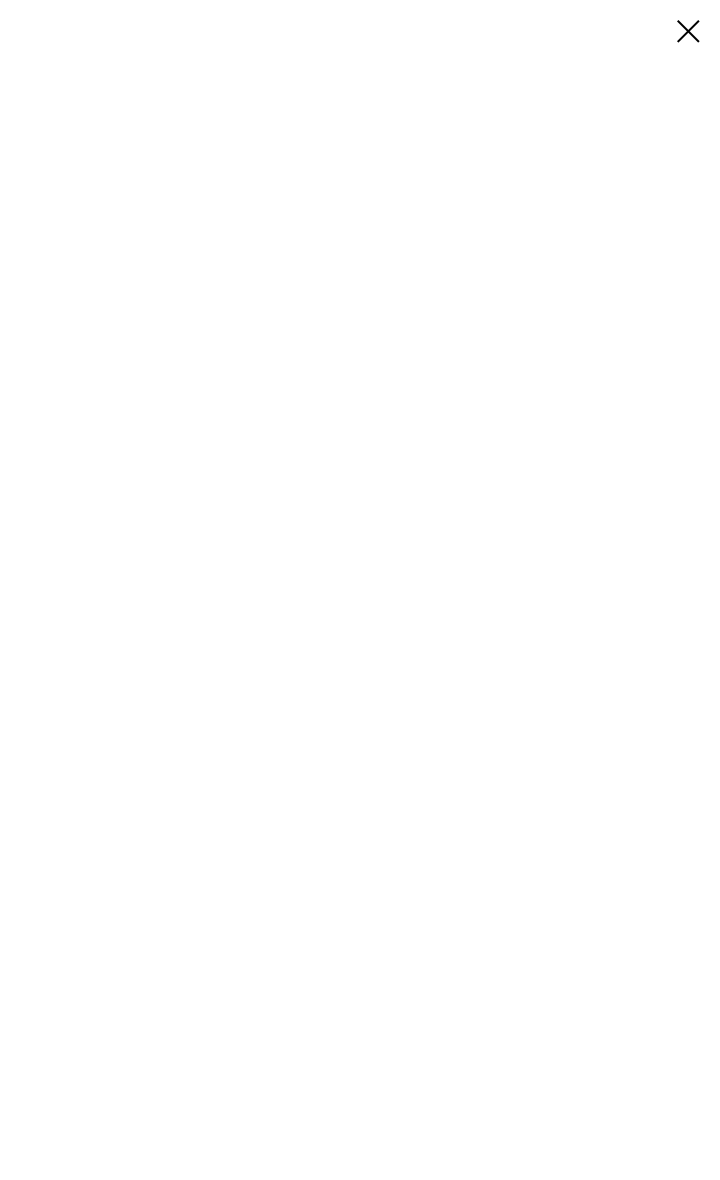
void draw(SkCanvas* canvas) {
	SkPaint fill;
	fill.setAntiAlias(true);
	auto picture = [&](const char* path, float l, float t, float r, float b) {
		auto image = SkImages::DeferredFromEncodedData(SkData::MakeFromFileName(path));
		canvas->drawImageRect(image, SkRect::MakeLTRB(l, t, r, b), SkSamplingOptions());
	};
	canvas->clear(0xFFFFFFFF);
	picture("image0.png", 677, 20, 700, 43);
}
